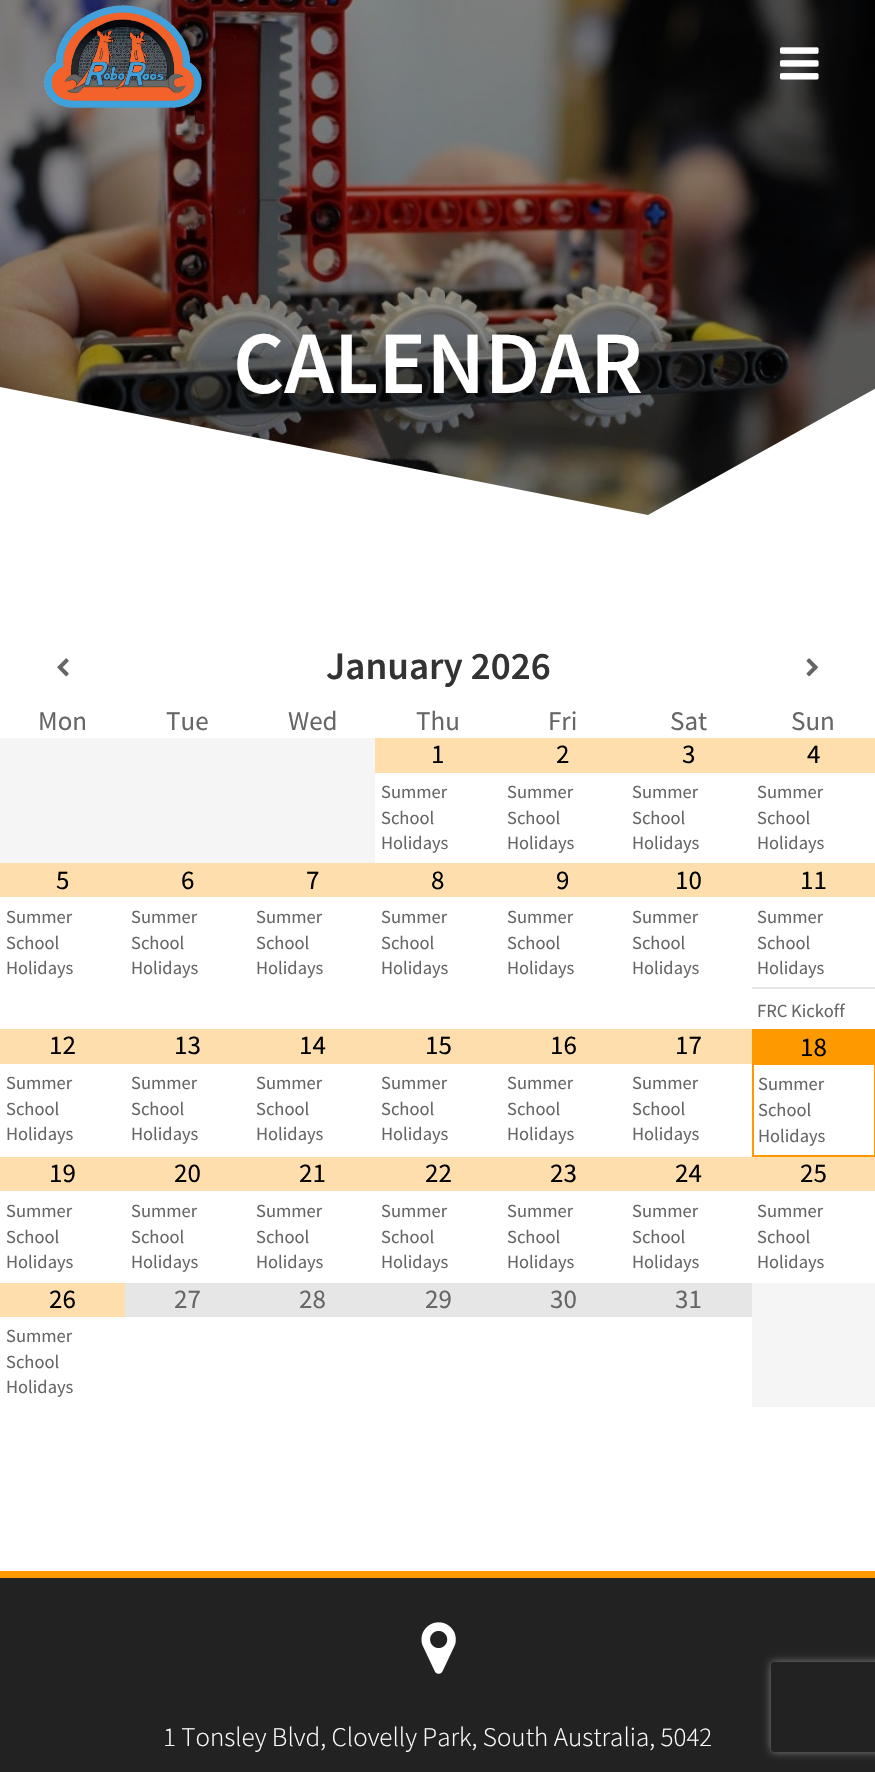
void draw(SkCanvas* canvas) {
	SkPaint fill;
	fill.setAntiAlias(true);
	auto makeFont = [&](const char* family, int weight, float size, bool italic = false) {
		SkFontStyle style(weight, SkFontStyle::kNormal_Width,
			italic ? SkFontStyle::kItalic_Slant : SkFontStyle::kUpright_Slant);
		SkFont result(fontMgr->matchFamilyStyle(family, style), size);
		result.setSubpixel(true);
		return result;
	};
	auto text = [&](const char* s, float x, float y, const SkFont& font) {
		canvas->drawString(s, x, y, font, fill);
	};
	auto box = [&](float l, float t, float r, float b) {
		canvas->drawRect(SkRect::MakeLTRB(l, t, r, b), fill);
	};
	auto picture = [&](const char* path, float l, float t, float r, float b) {
		auto image = SkImages::DeferredFromEncodedData(SkData::MakeFromFileName(path));
		canvas->drawImageRect(image, SkRect::MakeLTRB(l, t, r, b), SkSamplingOptions());
	};
	canvas->clear(0xFFFFFFFF);
	picture("image2.png", 0, 0, 875, 515);
	picture("image0.png", 44, 5, 202, 108);
	picture("image1.png", 780, 47, 819, 80);
	fill.setColor(0xFFFFFFFF);
	canvas->drawPath(SkPathBuilder().moveTo(648, 515).lineTo(0, 387).lineTo(0, 522).lineTo(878, 522).lineTo(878, 387).close().detach(), fill);
	picture("image3.png", 57, 658, 69, 677);
	picture("image4.png", 806, 658, 818, 677);
	fill.setColor(0xFFF5F5F5);
	box(0, 738, 375, 863);
	fill.setColor(0xFFFFDEAD);
	box(375, 738, 875, 773);
	box(0, 863, 875, 897);
	fill.setColor(0xFFE6E6E6);
	box(752, 987, 875, 989);
	fill.setColor(0xFFFFDEAD);
	box(0, 1029, 752, 1064);
	fill.setStyle(SkPaint::kStroke_Style);
	fill.setStrokeWidth(2);
	fill.setColor(0xFFFF9900);
	canvas->drawRect(SkRect::MakeLTRB(753, 1030, 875, 1156), fill);
	fill.setStyle(SkPaint::kFill_Style);
	box(754, 1031, 874, 1065);
	fill.setColor(0xFFFFDEAD);
	box(0, 1157, 875, 1191);
	box(0, 1283, 125, 1317);
	fill.setColor(0xFFE6E6E6);
	box(125, 1283, 752, 1317);
	fill.setColor(0xFFF5F5F5);
	box(752, 1283, 875, 1407);
	fill.setColor(0xFF222222);
	box(0, 1578, 875, 1772);
	fill.setColor(0xFFFF9900);
	box(0, 1571, 875, 1578);
	picture("image5.png", 421, 1622, 456, 1674);
	canvas->save();
	canvas->clipPath(SkPathBuilder(SkPathFillType::kEvenOdd).moveTo(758, 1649).lineTo(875, 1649).lineTo(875, 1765).lineTo(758, 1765).close().moveTo(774, 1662).lineTo(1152, 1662).cubicTo(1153.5f, 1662, 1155, 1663.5f, 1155, 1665).lineTo(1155, 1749).cubicTo(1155, 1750.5f, 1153.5f, 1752, 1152, 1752).lineTo(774, 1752).cubicTo(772.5f, 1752, 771, 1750.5f, 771, 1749).lineTo(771, 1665).cubicTo(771, 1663.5f, 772.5f, 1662, 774, 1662).close().detach(), true);
	fill.setColor(0xFF808080);
	fill.setMaskFilter(SkMaskFilter::MakeBlur(kNormal_SkBlurStyle, 4));
	canvas->drawRoundRect(SkRect::MakeLTRB(771, 1662, 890, 1752), 3, 3, fill);
	fill.setMaskFilter(nullptr);
	canvas->restore();
	auto font1 = makeFont("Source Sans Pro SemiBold", 600, 89);
	fill.setColor(0xFFFFFFFF);
	text("CALENDAR", 233, 393, font1);
	auto font2 = makeFont("Source Sans Pro SemiBold", 600, 39);
	fill.setColor(0xFF333333);
	text("January 2026", 326, 679, font2);
	auto font3 = makeFont("Source Sans Pro", 400, 27);
	fill.setColor(0xFF666666);
	text("Mon", 38, 730, font3);
	text("Tue", 166, 730, font3);
	text("Wed", 288, 730, font3);
	text("Thu", 416, 730, font3);
	text("Fri", 548, 730, font3);
	text("Sat", 670, 730, font3);
	text("Sun", 791, 730, font3);
	fill.setColor(0xFF000000);
	text("1", 431, 763, font3);
	auto font4 = makeFont("Source Sans Pro", 400, 18.5f);
	fill.setColor(0xFF666666);
	text("Summer", 381, 798, font4);
	text("School", 381, 824, font4);
	text("Holidays", 381, 849, font4);
	fill.setColor(0xFF000000);
	text("2", 556, 763, font3);
	fill.setColor(0xFF666666);
	text("Summer", 507, 798, font4);
	text("School", 507, 824, font4);
	text("Holidays", 507, 849, font4);
	fill.setColor(0xFF000000);
	text("3", 682, 763, font3);
	fill.setColor(0xFF666666);
	text("Summer", 632, 798, font4);
	text("School", 632, 824, font4);
	text("Holidays", 632, 849, font4);
	fill.setColor(0xFF000000);
	text("4", 807, 763, font3);
	fill.setColor(0xFF666666);
	text("Summer", 757, 798, font4);
	text("School", 757, 824, font4);
	text("Holidays", 757, 849, font4);
	fill.setColor(0xFF000000);
	text("5", 56, 889, font3);
	fill.setColor(0xFF666666);
	text("Summer", 6, 923, font4);
	text("School", 6, 949, font4);
	text("Holidays", 6, 974, font4);
	fill.setColor(0xFF000000);
	text("6", 181, 889, font3);
	fill.setColor(0xFF666666);
	text("Summer", 131, 923, font4);
	text("School", 131, 949, font4);
	text("Holidays", 131, 974, font4);
	fill.setColor(0xFF000000);
	text("7", 306, 889, font3);
	fill.setColor(0xFF666666);
	text("Summer", 256, 923, font4);
	text("School", 256, 949, font4);
	text("Holidays", 256, 974, font4);
	fill.setColor(0xFF000000);
	text("8", 431, 889, font3);
	fill.setColor(0xFF666666);
	text("Summer", 381, 923, font4);
	text("School", 381, 949, font4);
	text("Holidays", 381, 974, font4);
	fill.setColor(0xFF000000);
	text("9", 556, 889, font3);
	fill.setColor(0xFF666666);
	text("Summer", 507, 923, font4);
	text("School", 507, 949, font4);
	text("Holidays", 507, 974, font4);
	fill.setColor(0xFF000000);
	text("10", 675, 889, font3);
	fill.setColor(0xFF666666);
	text("Summer", 632, 923, font4);
	text("School", 632, 949, font4);
	text("Holidays", 632, 974, font4);
	fill.setColor(0xFF000000);
	text("11", 800, 889, font3);
	fill.setColor(0xFF666666);
	text("Summer", 757, 923, font4);
	text("School", 757, 949, font4);
	text("Holidays", 757, 974, font4);
	text("FRC Kickoff", 757, 1017, font4);
	fill.setColor(0xFF000000);
	text("12", 49, 1054, font3);
	fill.setColor(0xFF666666);
	text("Summer", 6, 1089, font4);
	text("School", 6, 1115, font4);
	text("Holidays", 6, 1140, font4);
	fill.setColor(0xFF000000);
	text("13", 174, 1054, font3);
	fill.setColor(0xFF666666);
	text("Summer", 131, 1089, font4);
	text("School", 131, 1115, font4);
	text("Holidays", 131, 1140, font4);
	fill.setColor(0xFF000000);
	text("14", 299, 1054, font3);
	fill.setColor(0xFF666666);
	text("Summer", 256, 1089, font4);
	text("School", 256, 1115, font4);
	text("Holidays", 256, 1140, font4);
	fill.setColor(0xFF000000);
	text("15", 425, 1054, font3);
	fill.setColor(0xFF666666);
	text("Summer", 381, 1089, font4);
	text("School", 381, 1115, font4);
	text("Holidays", 381, 1140, font4);
	fill.setColor(0xFF000000);
	text("16", 550, 1054, font3);
	fill.setColor(0xFF666666);
	text("Summer", 507, 1089, font4);
	text("School", 507, 1115, font4);
	text("Holidays", 507, 1140, font4);
	fill.setColor(0xFF000000);
	text("17", 675, 1054, font3);
	fill.setColor(0xFF666666);
	text("Summer", 632, 1089, font4);
	text("School", 632, 1115, font4);
	text("Holidays", 632, 1140, font4);
	fill.setColor(0xFF000000);
	text("18", 800, 1056, font3);
	fill.setColor(0xFF666666);
	text("Summer", 758, 1090, font4);
	text("School", 758, 1116, font4);
	text("Holidays", 758, 1142, font4);
	fill.setColor(0xFF000000);
	text("19", 49, 1182, font3);
	fill.setColor(0xFF666666);
	text("Summer", 6, 1217, font4);
	text("School", 6, 1243, font4);
	text("Holidays", 6, 1268, font4);
	fill.setColor(0xFF000000);
	text("20", 174, 1182, font3);
	fill.setColor(0xFF666666);
	text("Summer", 131, 1217, font4);
	text("School", 131, 1243, font4);
	text("Holidays", 131, 1268, font4);
	fill.setColor(0xFF000000);
	text("21", 299, 1182, font3);
	fill.setColor(0xFF666666);
	text("Summer", 256, 1217, font4);
	text("School", 256, 1243, font4);
	text("Holidays", 256, 1268, font4);
	fill.setColor(0xFF000000);
	text("22", 425, 1182, font3);
	fill.setColor(0xFF666666);
	text("Summer", 381, 1217, font4);
	text("School", 381, 1243, font4);
	text("Holidays", 381, 1268, font4);
	fill.setColor(0xFF000000);
	text("23", 550, 1182, font3);
	fill.setColor(0xFF666666);
	text("Summer", 507, 1217, font4);
	text("School", 507, 1243, font4);
	text("Holidays", 507, 1268, font4);
	fill.setColor(0xFF000000);
	text("24", 675, 1182, font3);
	fill.setColor(0xFF666666);
	text("Summer", 632, 1217, font4);
	text("School", 632, 1243, font4);
	text("Holidays", 632, 1268, font4);
	fill.setColor(0xFF000000);
	text("25", 800, 1182, font3);
	fill.setColor(0xFF666666);
	text("Summer", 757, 1217, font4);
	text("School", 757, 1243, font4);
	text("Holidays", 757, 1268, font4);
	fill.setColor(0xFF000000);
	text("26", 49, 1308, font3);
	fill.setColor(0xFF666666);
	text("Summer", 6, 1342, font4);
	text("School", 6, 1368, font4);
	text("Holidays", 6, 1393, font4);
	text("27", 174, 1308, font3);
	text("28", 299, 1308, font3);
	text("29", 425, 1308, font3);
	text("30", 550, 1308, font3);
	text("31", 675, 1308, font3);
	auto font5 = makeFont("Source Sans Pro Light", 300, 27);
	fill.setColor(0xFFFFFFFF);
	text("1 Tonsley Blvd, Clovelly Park, South Australia, 5042", 163, 1746, font5);
}
